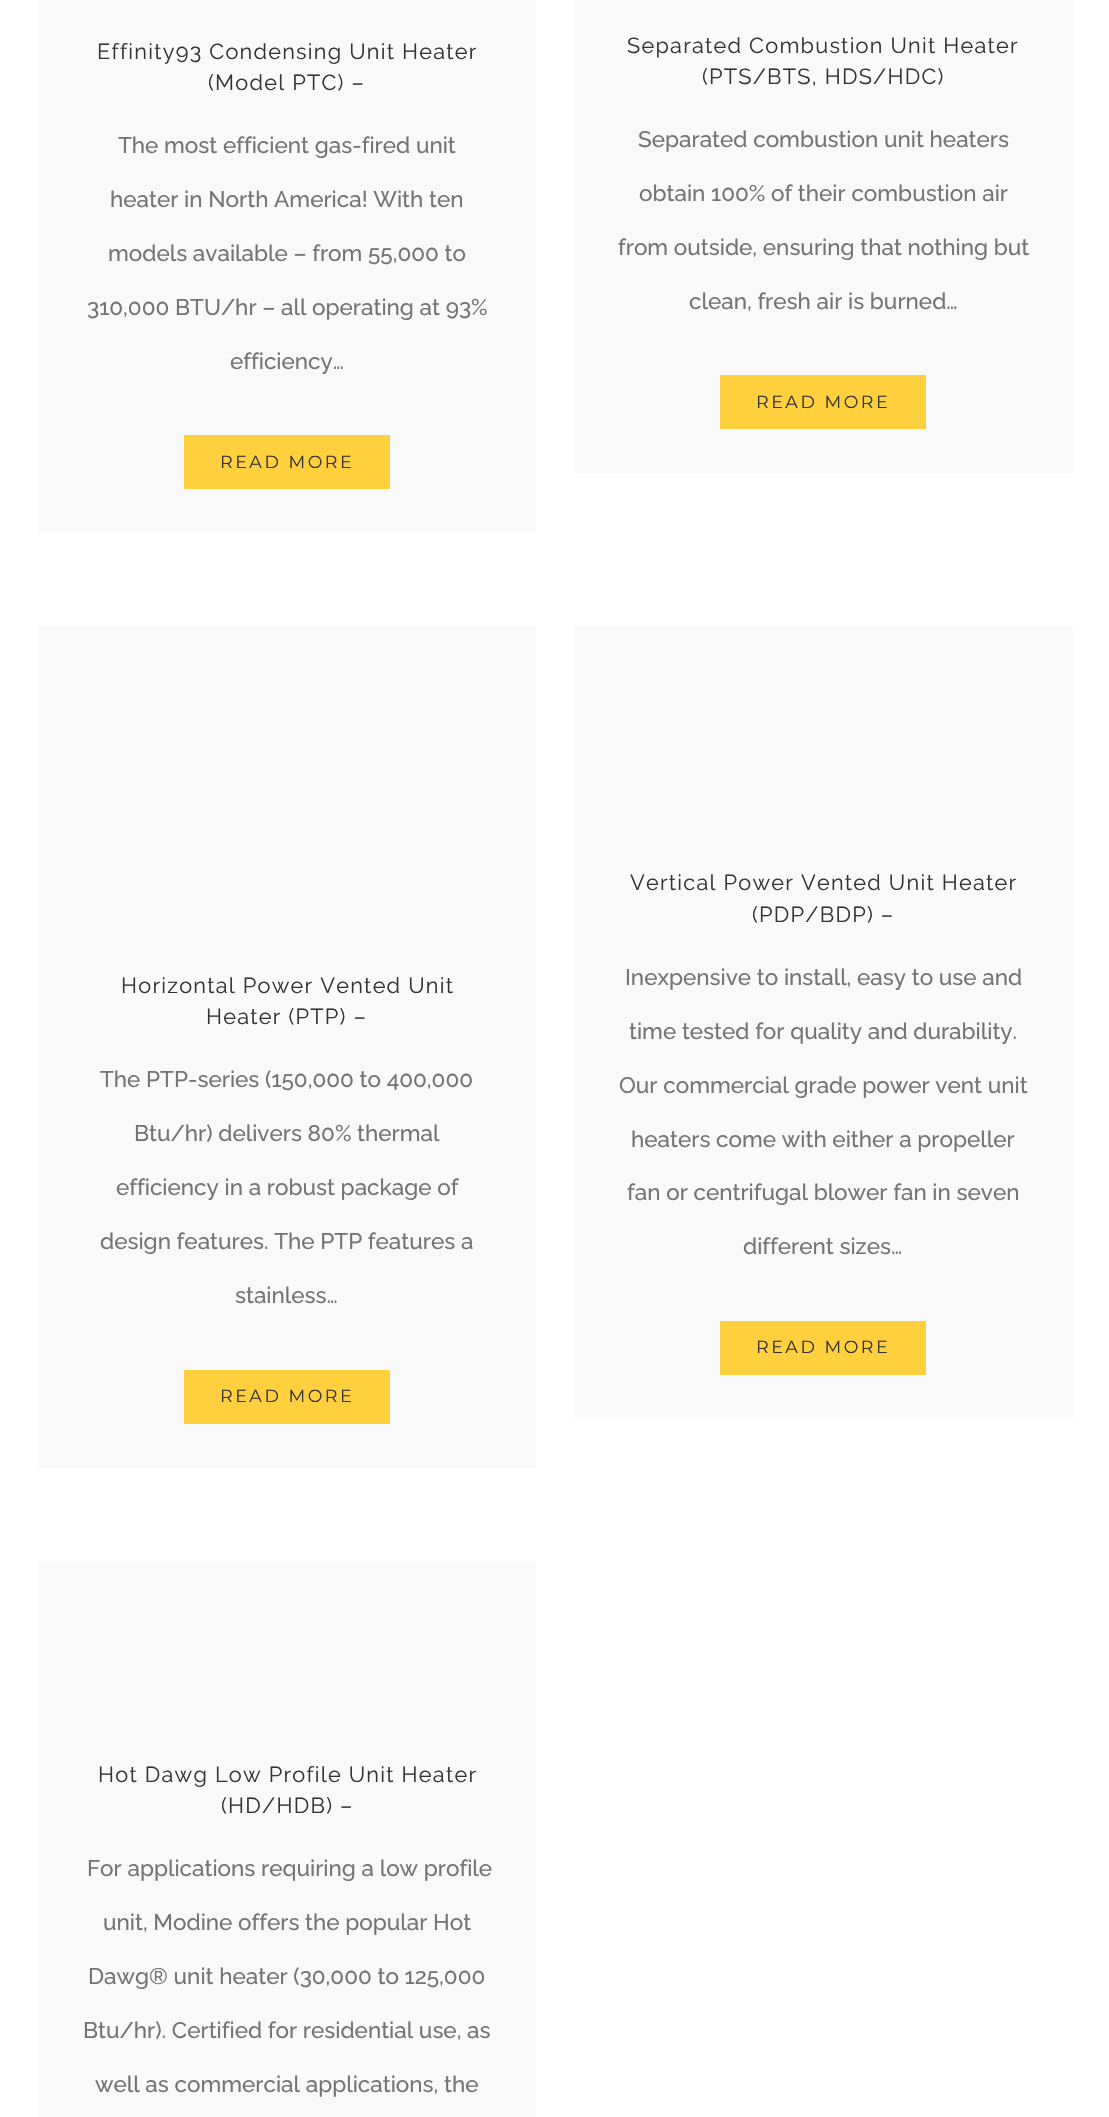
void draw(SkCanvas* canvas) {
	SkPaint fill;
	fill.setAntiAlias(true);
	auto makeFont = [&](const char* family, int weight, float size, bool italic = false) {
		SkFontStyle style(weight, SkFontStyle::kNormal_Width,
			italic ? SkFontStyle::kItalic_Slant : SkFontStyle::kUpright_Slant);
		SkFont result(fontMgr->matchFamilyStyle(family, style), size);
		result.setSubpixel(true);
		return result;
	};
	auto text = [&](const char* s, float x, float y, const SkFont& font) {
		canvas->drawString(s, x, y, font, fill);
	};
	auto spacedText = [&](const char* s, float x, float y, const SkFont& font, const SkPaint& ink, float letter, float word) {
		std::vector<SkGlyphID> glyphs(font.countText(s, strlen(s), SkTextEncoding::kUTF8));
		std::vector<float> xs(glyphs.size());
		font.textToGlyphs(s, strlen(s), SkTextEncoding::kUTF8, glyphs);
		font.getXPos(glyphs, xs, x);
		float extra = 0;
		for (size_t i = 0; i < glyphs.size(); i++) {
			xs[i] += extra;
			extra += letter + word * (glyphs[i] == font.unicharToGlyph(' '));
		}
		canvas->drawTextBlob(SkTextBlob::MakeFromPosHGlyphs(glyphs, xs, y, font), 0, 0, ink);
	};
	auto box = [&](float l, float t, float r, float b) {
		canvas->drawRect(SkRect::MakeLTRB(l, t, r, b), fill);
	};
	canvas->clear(0xFFFFFFFF);
	fill.setColor(0xFFF9F9F9);
	box(38, 0, 536, 533);
	fill.setColor(0xFFFED03D);
	box(184, 435, 390, 489);
	fill.setColor(0xFFF9F9F9);
	box(574, 0, 1073, 473);
	fill.setColor(0xFFFED03D);
	box(720, 375, 926, 429);
	fill.setColor(0xFFF9F9F9);
	box(38, 626, 536, 1468);
	fill.setColor(0xFFFED03D);
	box(184, 1370, 390, 1424);
	fill.setColor(0xFFF9F9F9);
	box(574, 626, 1073, 1419);
	fill.setColor(0xFFFED03D);
	box(720, 1321, 926, 1375);
	fill.setColor(0xFFF9F9F9);
	box(38, 1561, 536, 2117);
	auto font1 = makeFont("Raleway", 400, 21.7f);
	fill.setColor(0xFF333333);
	spacedText("Effinity93 Condensing Unit Heater", 97, 59, font1, fill, 1.25f, 0);
	spacedText("(Model PTC) –", 208, 90, font1, fill, 1.25f, 0);
	auto font2 = makeFont("Raleway", 500, 22.5f);
	fill.setColor(0xFF747474);
	text("The most efficient gas-fired unit", 118, 153, font2);
	text("heater in North America! With ten", 110, 207, font2);
	text("models available – from 55,000 to", 108, 261, font2);
	text("310,000 BTU/hr – all operating at 93%", 87, 315, font2);
	text("efficiency…", 230, 369, font2);
	auto font3 = makeFont("Montserrat", 400, 17.5f);
	fill.setColor(0xFF333333);
	spacedText("READ MORE", 220, 468, font3, fill, 2.5f, 0);
	spacedText("Separated Combustion Unit Heater", 627, 53, font1, fill, 1.25f, 0);
	spacedText("(PTS/BTS, HDS/HDC)", 702, 84, font1, fill, 1.25f, 0);
	fill.setColor(0xFF747474);
	text("Separated combustion unit heaters", 638, 147, font2);
	text("obtain 100% of their combustion air", 639, 201, font2);
	text("from outside, ensuring that nothing but", 618, 255, font2);
	text("clean, fresh air is burned…", 689, 309, font2);
	fill.setColor(0xFF333333);
	spacedText("READ MORE", 756, 408, font3, fill, 2.5f, 0);
	spacedText("Horizontal Power Vented Unit", 121, 993, font1, fill, 1.25f, 0);
	spacedText("Heater (PTP) –", 206, 1024, font1, fill, 1.25f, 0);
	fill.setColor(0xFF747474);
	text("The PTP-series (150,000 to 400,000", 100, 1087, font2);
	text("Btu/hr) delivers 80% thermal", 134, 1141, font2);
	text("efficiency in a robust package of", 116, 1195, font2);
	text("design features. The PTP features a", 100, 1249, font2);
	text("stainless…", 235, 1303, font2);
	fill.setColor(0xFF333333);
	spacedText("READ MORE", 220, 1402, font3, fill, 2.5f, 0);
	spacedText("Vertical Power Vented Unit Heater", 630, 890, font1, fill, 1.25f, 0);
	spacedText("(PDP/BDP) –", 752, 922, font1, fill, 1.25f, 0);
	fill.setColor(0xFF747474);
	text("Inexpensive to install, easy to use and", 625, 985, font2);
	text("time tested for quality and durability.", 629, 1039, font2);
	text("Our commercial grade power vent unit", 619, 1093, font2);
	text("heaters come with either a propeller", 631, 1147, font2);
	text("fan or centrifugal blower fan in seven", 627, 1200, font2);
	text("different sizes…", 743, 1254, font2);
	fill.setColor(0xFF333333);
	spacedText("READ MORE", 756, 1353, font3, fill, 2.5f, 0);
	spacedText("Hot Dawg Low Profile Unit Heater", 98, 1782, font1, fill, 1.25f, 0);
	spacedText("(HD/HDB) –", 221, 1813, font1, fill, 1.25f, 0);
	fill.setColor(0xFF747474);
	text("For applications requiring a low profile", 87, 1876, font2);
	text("unit, Modine offers the popular Hot", 103, 1930, font2);
	text("Dawg® unit heater (30,000 to 125,000", 88, 1984, font2);
	text("Btu/hr). Certified for residential use, as", 83, 2038, font2);
	text("well as commercial applications, the", 95, 2092, font2);
}
